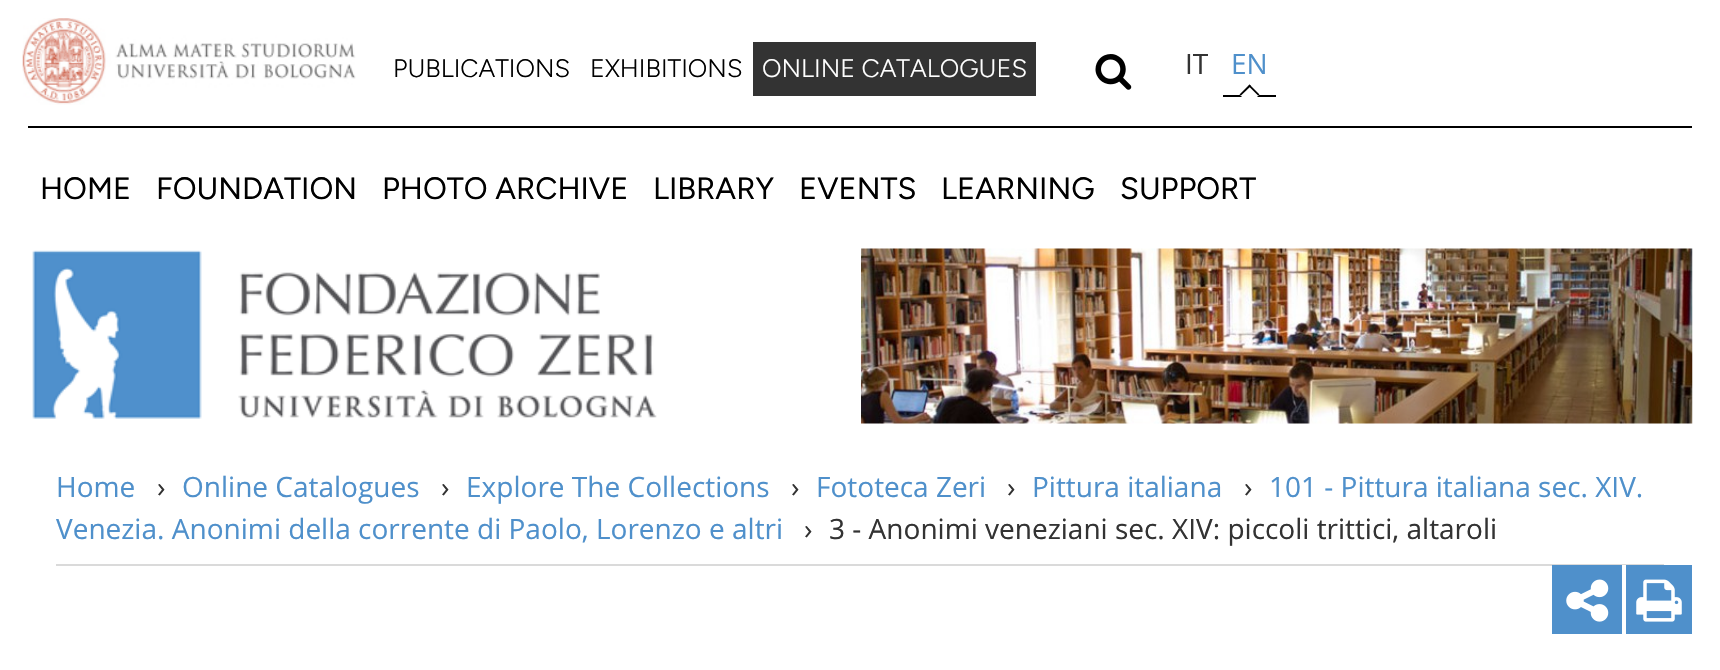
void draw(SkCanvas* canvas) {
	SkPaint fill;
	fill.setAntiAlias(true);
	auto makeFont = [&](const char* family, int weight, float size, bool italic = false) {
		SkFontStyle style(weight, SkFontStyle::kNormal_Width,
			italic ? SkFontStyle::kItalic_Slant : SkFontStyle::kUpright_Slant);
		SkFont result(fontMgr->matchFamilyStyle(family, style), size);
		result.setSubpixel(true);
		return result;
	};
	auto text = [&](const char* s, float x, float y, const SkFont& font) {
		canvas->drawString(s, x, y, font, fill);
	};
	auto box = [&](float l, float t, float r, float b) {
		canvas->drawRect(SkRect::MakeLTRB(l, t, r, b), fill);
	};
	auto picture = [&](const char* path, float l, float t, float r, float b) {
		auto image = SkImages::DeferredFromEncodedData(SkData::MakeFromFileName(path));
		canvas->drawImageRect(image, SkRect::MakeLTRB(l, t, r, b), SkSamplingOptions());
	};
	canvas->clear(0xFFFFFFFF);
	picture("image0.png", 22, 18, 356, 105);
	fill.setColor(0xFF333333);
	box(753, 42, 1036, 96);
	picture("image1.png", 1095, 54, 1132, 90);
	fill.setColor(0xFF000000);
	box(1223, 95, 1276, 97);
	fill.setColor(0xFFFFFFFF);
	canvas->drawPath(SkPathBuilder().moveTo(1249.5f, 84.5f).lineTo(1259.5f, 94.5f).lineTo(1249.5f, 104.5f).lineTo(1239.5f, 94.5f).close().detach(), fill);
	fill.setColor(0xFF000000);
	canvas->drawPath(SkPathBuilder().moveTo(1249.5f, 84.5f).lineTo(1259.5f, 94.5f).lineTo(1258, 95.5f).lineTo(1248.5f, 86).close().detach(), fill);
	canvas->drawPath(SkPathBuilder().moveTo(1249.5f, 84.5f).lineTo(1251, 86).lineTo(1241, 95.5f).lineTo(1239.5f, 94.5f).close().detach(), fill);
	box(28, 126, 1692, 128);
	picture("image2.png", 32, 250, 657, 419);
	picture("image3.png", 861, 248, 1693, 424);
	fill.setColor(0xFFDADADA);
	box(56, 564, 1664, 566);
	fill.setColor(0xFF4F90CB);
	box(1552, 565, 1622, 634);
	picture("image4.png", 1566, 579, 1609, 622);
	box(1626, 565, 1692, 634);
	fill.setColor(0xFFFFFFFF);
	box(1622, 565, 1626, 566);
	picture("image5.png", 1636, 579, 1682, 622);
	auto font1 = makeFont("Figtree", 300, 25.25f);
	fill.setColor(0xFF000000);
	text("PUBLICATIONS", 393, 77, font1);
	text("EXHIBITIONS", 590, 77, font1);
	fill.setColor(0xFFFFFFFF);
	text("ONLINE CATALOGUES", 762, 77, font1);
	auto font2 = makeFont("Open Sans", 400, 28);
	fill.setColor(0xFF333333);
	text("IT", 1185, 74, font2);
	fill.setColor(0xFF4F90CB);
	text("EN", 1231, 74, font2);
	auto font3 = makeFont("Figtree", 400, 30.75f);
	fill.setColor(0xFF000000);
	text("HOME", 40, 199, font3);
	text("FOUNDATION", 156, 199, font3);
	text("PHOTO ARCHIVE", 382, 199, font3);
	text("LIBRARY", 653, 199, font3);
	text("EVENTS", 799, 199, font3);
	text("LEARNING", 941, 199, font3);
	text("SUPPORT", 1120, 199, font3);
	fill.setColor(0xFF4F90CB);
	text("Home", 56, 497, font2);
	fill.setColor(0xFF333333);
	text("›", 157, 497, font2);
	fill.setColor(0xFF4F90CB);
	text("Online Catalogues", 182, 497, font2);
	fill.setColor(0xFF333333);
	text("›", 441, 497, font2);
	fill.setColor(0xFF4F90CB);
	text("Explore The Collections", 466, 497, font2);
	fill.setColor(0xFF333333);
	text("›", 791, 497, font2);
	fill.setColor(0xFF4F90CB);
	text("Fototeca Zeri", 816, 497, font2);
	fill.setColor(0xFF333333);
	text("›", 1007, 497, font2);
	fill.setColor(0xFF4F90CB);
	text("Pittura italiana", 1032, 497, font2);
	fill.setColor(0xFF333333);
	text("›", 1244, 497, font2);
	fill.setColor(0xFF4F90CB);
	text("101 - Pittura italiana sec. XIV.", 1269, 497, font2);
	text("Venezia. Anonimi della corrente di Paolo, Lorenzo e altri", 56, 539, font2);
	fill.setColor(0xFF333333);
	text("›", 804, 539, font2);
	text("3 - Anonimi veneziani sec. XIV: piccoli trittici, altaroli", 829, 539, font2);
}
